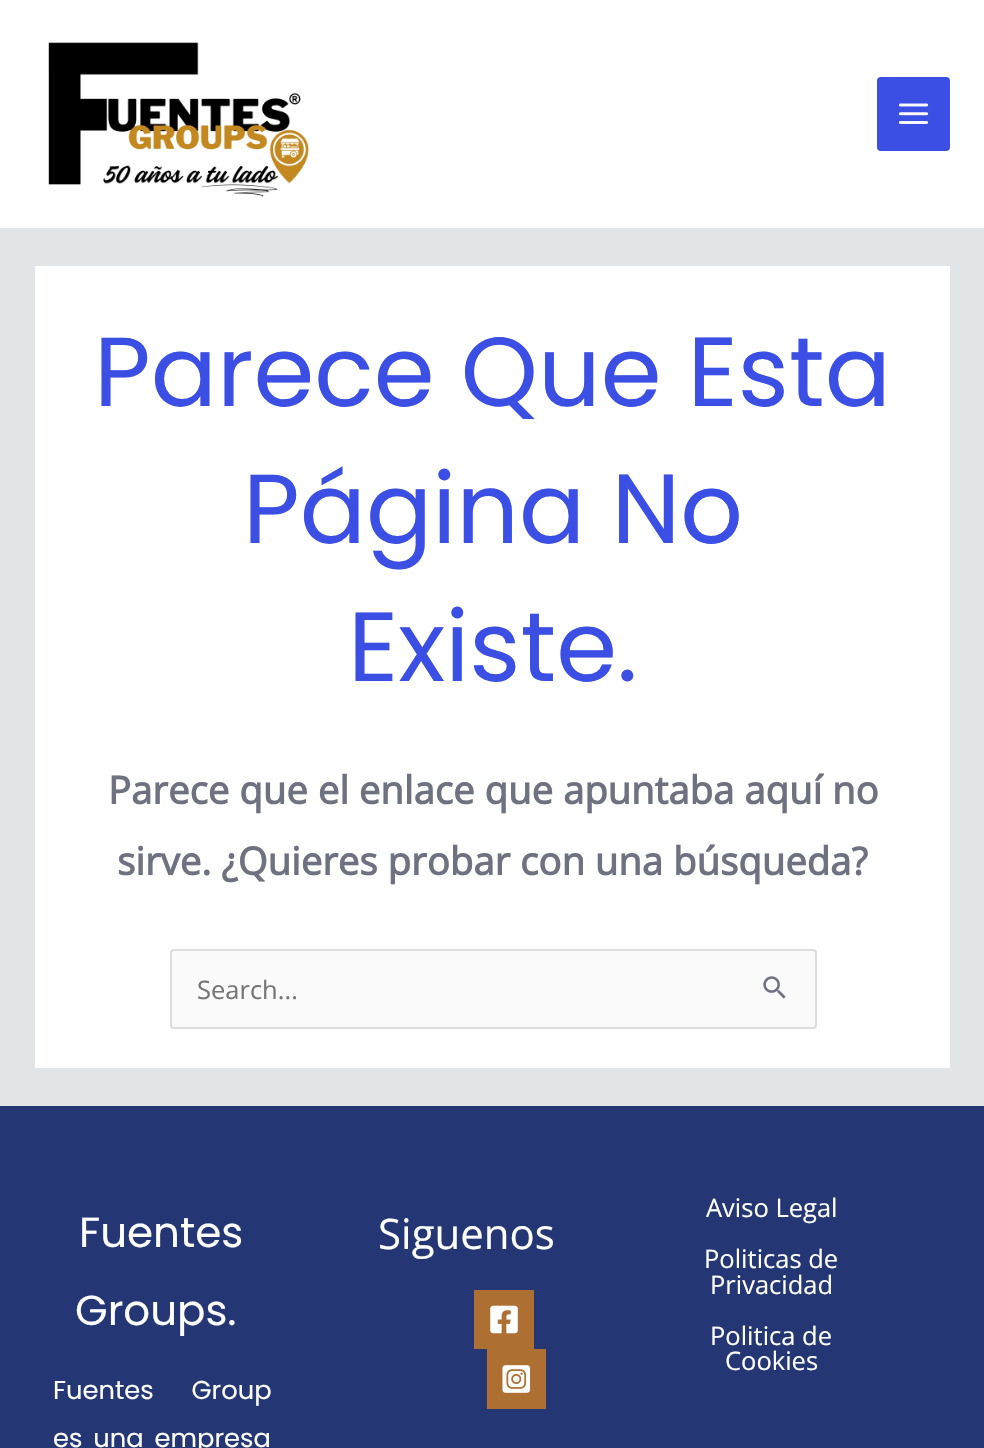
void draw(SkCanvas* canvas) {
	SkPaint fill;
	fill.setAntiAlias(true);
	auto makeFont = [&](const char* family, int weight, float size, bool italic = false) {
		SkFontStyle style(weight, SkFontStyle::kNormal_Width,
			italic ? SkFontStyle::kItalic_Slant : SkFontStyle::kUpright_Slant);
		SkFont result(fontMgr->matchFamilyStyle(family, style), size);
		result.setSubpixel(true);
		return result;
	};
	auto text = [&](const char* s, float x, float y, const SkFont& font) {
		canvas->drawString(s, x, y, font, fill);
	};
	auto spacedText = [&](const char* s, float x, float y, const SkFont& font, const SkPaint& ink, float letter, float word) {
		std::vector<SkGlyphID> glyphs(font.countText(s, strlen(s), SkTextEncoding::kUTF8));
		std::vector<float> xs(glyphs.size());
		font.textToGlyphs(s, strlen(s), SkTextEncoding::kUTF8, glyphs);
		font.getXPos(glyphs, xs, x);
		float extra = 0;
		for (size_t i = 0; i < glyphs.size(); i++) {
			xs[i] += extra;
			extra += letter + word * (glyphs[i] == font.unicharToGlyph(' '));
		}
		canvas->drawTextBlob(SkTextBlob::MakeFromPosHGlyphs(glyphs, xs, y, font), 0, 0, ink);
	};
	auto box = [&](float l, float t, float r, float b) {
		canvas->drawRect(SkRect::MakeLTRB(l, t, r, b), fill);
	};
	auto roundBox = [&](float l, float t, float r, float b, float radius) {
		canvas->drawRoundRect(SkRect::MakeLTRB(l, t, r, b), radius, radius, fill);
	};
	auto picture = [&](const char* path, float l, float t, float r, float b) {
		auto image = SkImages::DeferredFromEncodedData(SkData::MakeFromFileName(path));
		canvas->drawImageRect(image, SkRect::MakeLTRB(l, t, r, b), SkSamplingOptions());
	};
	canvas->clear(0xFFE2E5E7);
	fill.setColor(0xFFFFFFFF);
	box(0, 0, 984, 228);
	picture("image0.png", 48, 42, 309, 197);
	fill.setColor(0xFF3B4FE4);
	roundBox(877, 77, 950, 151, 4);
	picture("image1.png", 898, 103, 929, 124);
	fill.setColor(0xFFFFFFFF);
	box(35, 266, 950, 1068);
	fill.setColor(0xFFFAFAFA);
	canvas->drawRoundRect(SkRect::MakeLTRB(171, 950, 816, 1028), 3, 3, fill);
	fill.setStyle(SkPaint::kStroke_Style);
	fill.setStrokeWidth(2);
	fill.setColor(0xFFDDDDDD);
	canvas->drawRoundRect(SkRect::MakeLTRB(171, 950, 816, 1028), 3, 3, fill);
	picture("image2.png", 763, 976, 786, 999);
	fill.setStyle(SkPaint::kFill_Style);
	fill.setColor(0xFF243673);
	box(0, 1106, 984, 1448);
	fill.setColor(0xFFE6E6E6);
	box(0, 1104, 984, 1106);
	fill.setColor(0xFFAE6F32);
	box(474, 1290, 534, 1349);
	picture("image3.png", 490, 1305, 518, 1334);
	box(487, 1349, 546, 1409);
	picture("image4.png", 502, 1365, 531, 1393);
	auto font1 = makeFont("Poppins", 400, 98);
	fill.setColor(0xFF3B4FE4);
	text("Parece Que Esta", 94, 406, font1);
	text("Página No", 243, 543, font1);
	text("Existe.", 348, 681, font1);
	auto font2 = makeFont("Open Sans", 700, 38.3f);
	fill.setColor(0xFF6E7180);
	text("Parece que el enlace que apuntaba aquí no", 108, 804, font2);
	text("sirve. ¿Quieres probar con una búsqueda?", 117, 875, font2);
	auto font3 = makeFont("Open Sans", 400, 25.5f);
	fill.setColor(0xFF757575);
	text("Search...", 197, 999, font3);
	auto font4 = makeFont("Poppins", 400, 42);
	fill.setColor(0xFFFFFFFF);
	text("Fuentes", 79, 1247, font4);
	text("Groups.", 75, 1325, font4);
	auto font5 = makeFont("Poppins", 400, 25.75f);
	spacedText("Fuentes Group", 53, 1399, font5, fill, 0, 31);
	spacedText("es una empresa", 53, 1447, font5, fill, 0, 4);
	auto font6 = makeFont("Open Sans", 400, 42);
	text("Siguenos", 378, 1249, font6);
	text("Aviso Legal", 706, 1217, font3);
	text("Politicas de", 704, 1268, font3);
	text("Privacidad", 710, 1294, font3);
	text("Politica de", 710, 1345, font3);
	text("Cookies", 725, 1370, font3);
}
